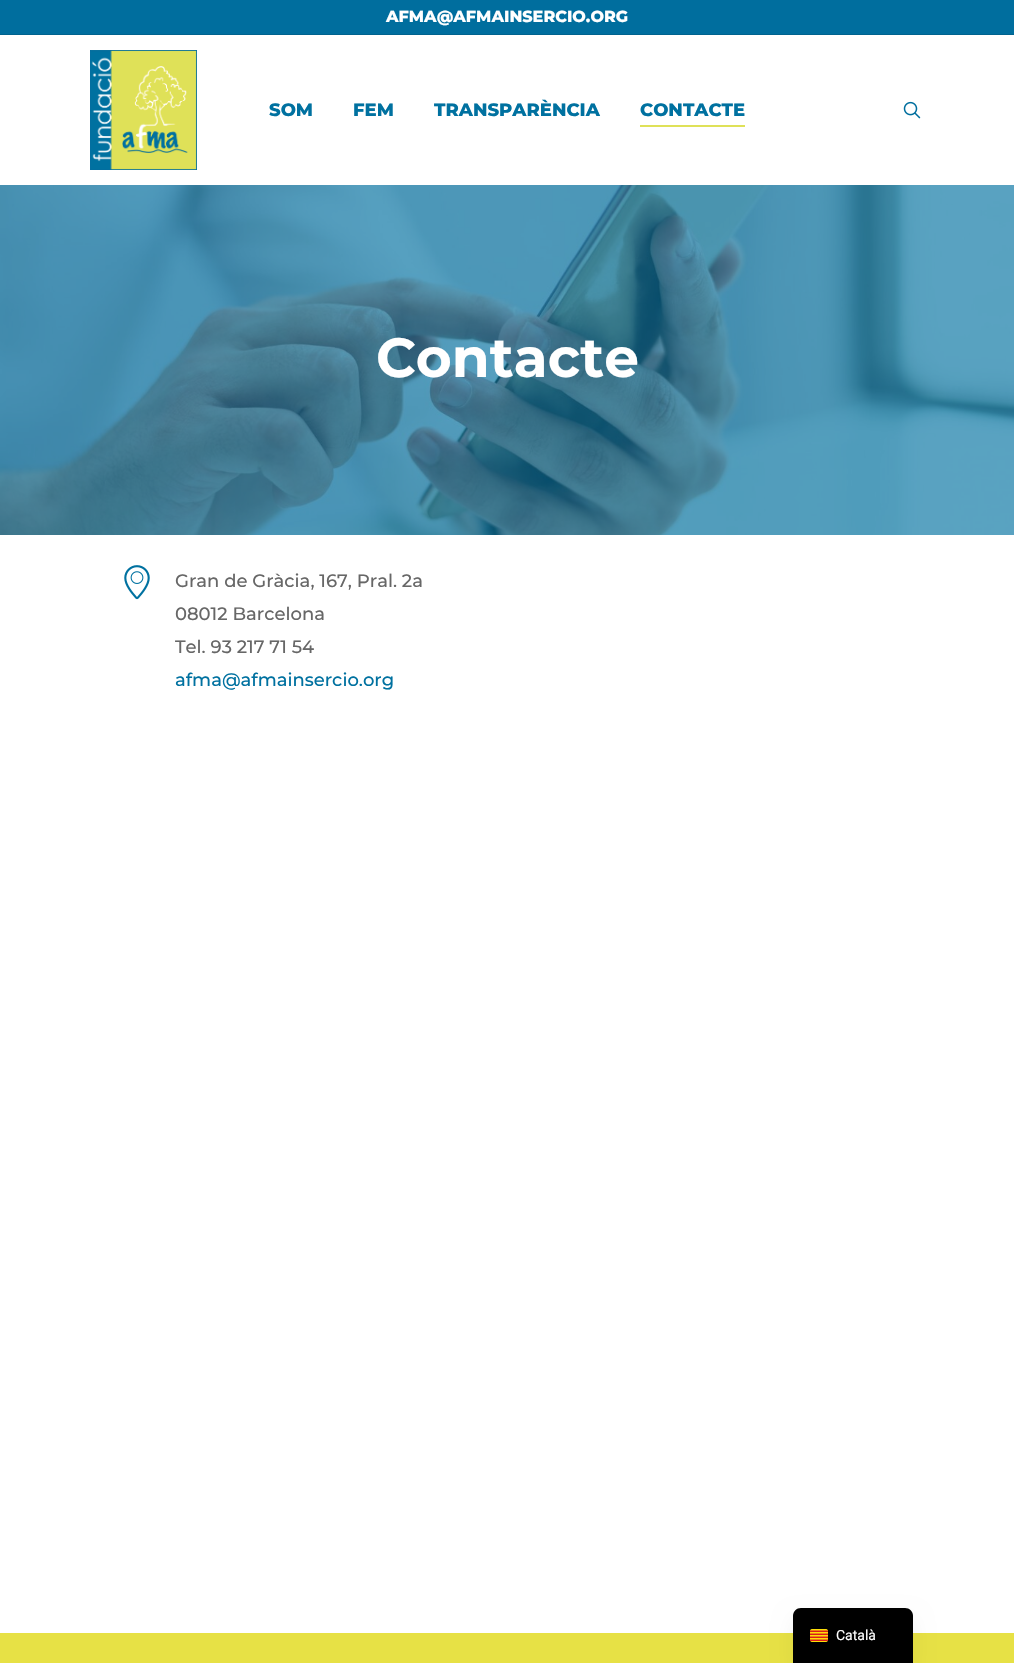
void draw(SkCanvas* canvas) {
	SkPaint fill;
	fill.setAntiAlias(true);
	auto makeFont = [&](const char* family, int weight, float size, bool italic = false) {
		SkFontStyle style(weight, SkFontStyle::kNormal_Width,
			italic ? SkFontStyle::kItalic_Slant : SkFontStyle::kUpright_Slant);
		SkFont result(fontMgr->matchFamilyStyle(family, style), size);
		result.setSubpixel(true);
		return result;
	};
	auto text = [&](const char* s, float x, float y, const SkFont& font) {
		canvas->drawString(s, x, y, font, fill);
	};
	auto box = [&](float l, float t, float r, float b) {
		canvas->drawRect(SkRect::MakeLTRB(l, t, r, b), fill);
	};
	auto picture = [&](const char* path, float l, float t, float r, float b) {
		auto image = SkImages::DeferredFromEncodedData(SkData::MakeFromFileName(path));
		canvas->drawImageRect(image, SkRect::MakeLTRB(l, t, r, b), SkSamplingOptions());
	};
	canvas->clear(0xFFFFFFFF);
	fill.setColor(0xFF006E9E);
	box(0, 0, 1014, 34);
	fill.setColor(0xFF00638E);
	box(0, 34, 1014, 35);
	picture("image0.png", 90, 50, 197, 170);
	fill.setColor(0xFFDFE158);
	box(640, 125, 745, 127);
	picture("image1.png", 903, 101, 921, 119);
	picture("image2.png", 0, 185, 1014, 535);
	picture("image3.png", 124, 565, 150, 600);
	fill.setColor(0xFFE7E145);
	box(0, 1633, 1014, 1663);
	fill.setColor(0x0D000000);
	fill.setMaskFilter(SkMaskFilter::MakeBlur(kNormal_SkBlurStyle, 10));
	canvas->drawRoundRect(SkRect::MakeLTRB(793, 1618, 913, 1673), 8, 8, fill);
	fill.setMaskFilter(nullptr);
	fill.setColor(0xFF000000);
	canvas->drawPath(SkPathBuilder().moveTo(801, 1608).lineTo(905, 1608).cubicTo(909.5f, 1608, 913, 1611.5f, 913, 1616).lineTo(913, 1663).lineTo(793, 1663).lineTo(793, 1616).cubicTo(793, 1611.5f, 796.5f, 1608, 801, 1608).close().detach(), fill);
	picture("image4.png", 810, 1629, 828, 1642);
	auto font1 = makeFont("Montserrat", 800, 16);
	fill.setColor(0xFFFFFFFF);
	text("AFMA@AFMAINSERCIO.ORG", 386, 22, font1);
	auto font2 = makeFont("Montserrat", 800, 18);
	fill.setColor(0xFF0071A0);
	text("SOM", 269, 116, font2);
	text("FEM", 353, 116, font2);
	text("TRANSPARÈNCIA", 434, 116, font2);
	text("CONTACTE", 640, 116, font2);
	auto font3 = makeFont("Montserrat", 700, 55);
	fill.setColor(0xFFFFFFFF);
	text("Contacte", 376, 377, font3);
	auto font4 = makeFont("Montserrat", 500, 18);
	fill.setColor(0xFF676767);
	text("Gran de Gràcia, 167, Pral. 2a", 175, 587, font4);
	text("08012 Barcelona", 175, 620, font4);
	text("Tel. 93 217 71 54", 175, 653, font4);
	fill.setColor(0xFF0071A0);
	text("afma@afmainsercio.org", 175, 686, font4);
	auto font5 = makeFont("Roboto", 400, 14);
	fill.setColor(0xFFFFFFFF);
	text("Català", 836, 1640, font5);
}
